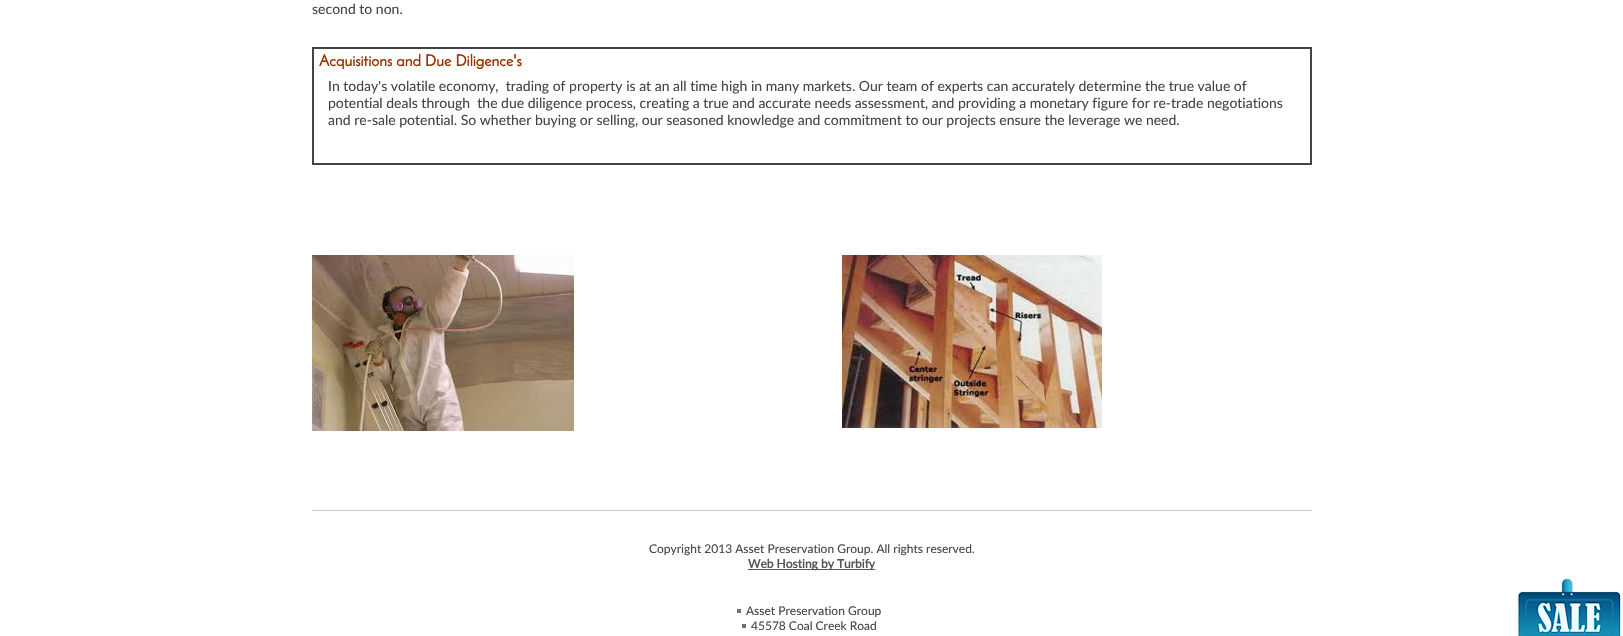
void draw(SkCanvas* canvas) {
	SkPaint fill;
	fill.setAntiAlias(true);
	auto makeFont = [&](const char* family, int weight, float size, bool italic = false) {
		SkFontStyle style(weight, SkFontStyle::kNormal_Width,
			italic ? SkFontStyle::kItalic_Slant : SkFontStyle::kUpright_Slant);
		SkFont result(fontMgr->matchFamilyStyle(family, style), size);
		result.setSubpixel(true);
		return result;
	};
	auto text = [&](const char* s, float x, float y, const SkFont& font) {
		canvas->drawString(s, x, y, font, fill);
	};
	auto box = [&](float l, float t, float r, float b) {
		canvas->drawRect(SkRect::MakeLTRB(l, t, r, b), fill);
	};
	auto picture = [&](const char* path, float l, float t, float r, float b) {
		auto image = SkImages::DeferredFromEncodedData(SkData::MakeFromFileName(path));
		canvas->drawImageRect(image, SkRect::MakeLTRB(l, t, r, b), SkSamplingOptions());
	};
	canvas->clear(0xFFFFFFFF);
	picture("image0.png", 1517, 579, 1621, 636);
	fill.setStyle(SkPaint::kStroke_Style);
	fill.setStrokeWidth(2);
	fill.setColor(0xFF444444);
	canvas->drawRect(SkRect::MakeLTRB(313, 48, 1311, 164), fill);
	picture("image1.png", 312, 255, 574, 431);
	picture("image2.png", 842, 255, 1102, 428);
	fill.setStyle(SkPaint::kFill_Style);
	fill.setColor(0xFFCECECE);
	box(312, 510, 1312, 511);
	fill.setColor(0xFF555555);
	box(748, 569, 875, 570);
	fill.setColor(0xFF727272);
	box(737, 609, 741, 613);
	box(742, 624, 746, 628);
	auto font1 = makeFont("Lato", 400, 14);
	fill.setColor(0xFF444444);
	text("second to non.", 312, 14, font1);
	canvas->save();
	canvas->clipRect(SkRect::MakeLTRB(319, 54, 1305, 70));
	auto font2 = makeFont("Josefin Sans", 700, 16);
	fill.setColor(0xFF993300);
	text("Acquisitions and Due Diligence's", 319, 66, font2);
	canvas->restore();
	fill.setColor(0xFF444444);
	text("In today's volatile economy,  trading of property is at an all time high in many markets. Our team of experts can accurately determine the true value of", 328, 91, font1);
	text("potential deals through  the due diligence process, creating a true and accurate needs assessment, and providing a monetary figure for re-trade negotiations", 328, 108, font1);
	text("and re-sale potential. So whether buying or selling, our seasoned knowledge and commitment to our projects ensure the leverage we need.", 328, 125, font1);
	auto font3 = makeFont("Lato", 400, 12);
	text("Copyright 2013 Asset Preservation Group. All rights reserved.", 649, 553, font3);
	auto font4 = makeFont("Lato", 700, 12);
	fill.setColor(0xFF555555);
	text("Web Hosting by Turbify", 748, 568, font4);
	fill.setColor(0xFF444444);
	text("Asset Preservation Group", 746, 615, font3);
	text("45578 Coal Creek Road", 751, 630, font3);
}
